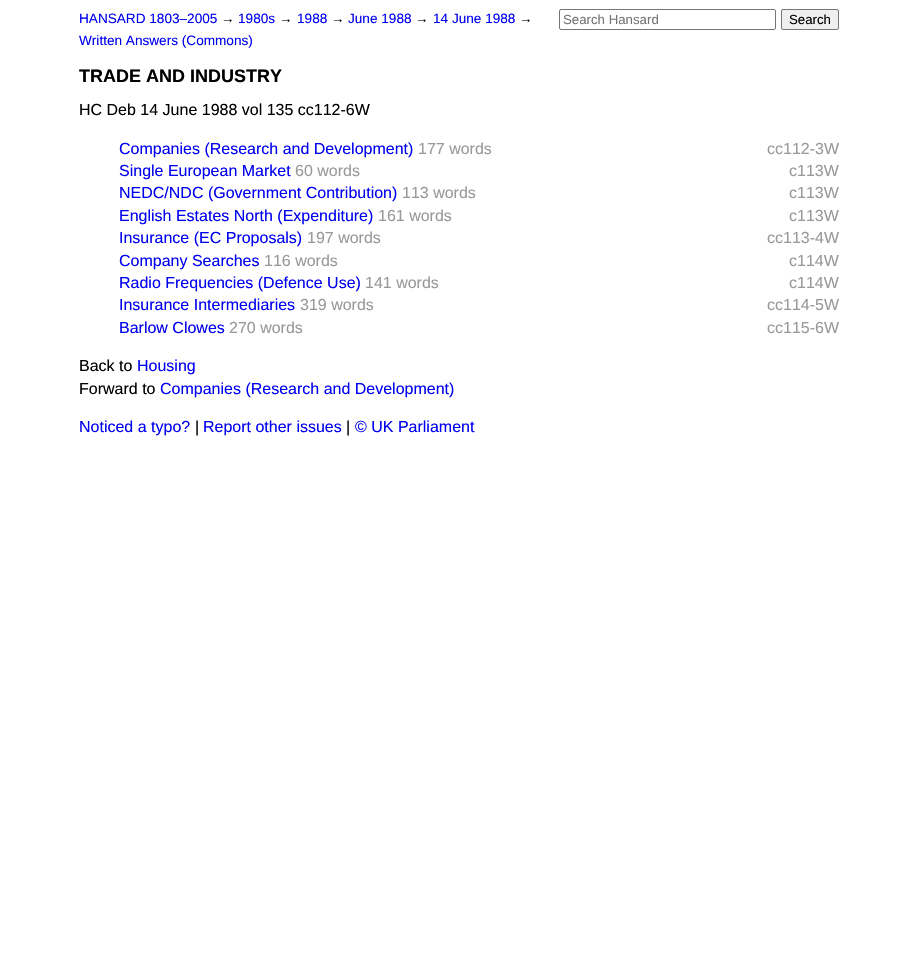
void draw(SkCanvas* canvas) {
	SkPaint fill;
	fill.setAntiAlias(true);
	auto makeFont = [&](const char* family, int weight, float size, bool italic = false) {
		SkFontStyle style(weight, SkFontStyle::kNormal_Width,
			italic ? SkFontStyle::kItalic_Slant : SkFontStyle::kUpright_Slant);
		SkFont result(fontMgr->matchFamilyStyle(family, style), size);
		result.setSubpixel(true);
		return result;
	};
	auto text = [&](const char* s, float x, float y, const SkFont& font) {
		canvas->drawString(s, x, y, font, fill);
	};
	canvas->clear(0xFFFFFFFF);
	fill.setStyle(SkPaint::kStroke_Style);
	fill.setStrokeWidth(1);
	fill.setColor(0xFF767676);
	canvas->drawRoundRect(SkRect::MakeLTRB(559.5f, 9.5f, 775.5f, 29.5f), 1.5f, 1.5f, fill);
	fill.setStyle(SkPaint::kFill_Style);
	fill.setColor(0xFFEFEFEF);
	canvas->drawRoundRect(SkRect::MakeLTRB(781.5f, 9.5f, 838.5f, 29.5f), 1.5f, 1.5f, fill);
	fill.setStyle(SkPaint::kStroke_Style);
	fill.setColor(0xFF767676);
	canvas->drawRoundRect(SkRect::MakeLTRB(781.5f, 9.5f, 838.5f, 29.5f), 1.5f, 1.5f, fill);
	auto font1 = makeFont("Liberation Sans", 400, 13.6f);
	fill.setStyle(SkPaint::kFill_Style);
	fill.setColor(0xFF0000EE);
	text("HANSARD 1803–2005", 79, 23, font1);
	fill.setColor(0xFF000000);
	text("→", 221, 23, font1);
	fill.setColor(0xFF0000EE);
	text("1980s", 238, 23, font1);
	fill.setColor(0xFF000000);
	text("→", 279, 23, font1);
	fill.setColor(0xFF0000EE);
	text("1988", 297, 23, font1);
	fill.setColor(0xFF000000);
	text("→", 331, 23, font1);
	fill.setColor(0xFF0000EE);
	text("June 1988", 348, 23, font1);
	fill.setColor(0xFF000000);
	text("→", 415, 23, font1);
	fill.setColor(0xFF0000EE);
	text("14 June 1988", 433, 23, font1);
	fill.setColor(0xFF000000);
	text("→", 519, 23, font1);
	fill.setColor(0xFF0000EE);
	text("Written Answers (Commons)", 79, 45, font1);
	auto font2 = makeFont("Liberation Sans", 400, 13.25f);
	fill.setColor(0xFF757575);
	text("Search Hansard", 563, 24, font2);
	fill.setColor(0xFF000000);
	text("Search", 789, 24, font2);
	auto font3 = makeFont("Liberation Sans", 700, 18);
	text("TRADE AND INDUSTRY", 79, 82, font3);
	auto font4 = makeFont("Liberation Sans", 400, 16);
	text("HC Deb 14 June 1988 vol 135 cc112-6W", 79, 115, font4);
	fill.setColor(0xFF0000EE);
	text("Companies (Research and Development)", 119, 154, font4);
	fill.setColor(0xFF999999);
	text("177 words", 418, 154, font4);
	text("cc112-3W", 767, 154, font4);
	fill.setColor(0xFF0000EE);
	text("Single European Market", 119, 176, font4);
	fill.setColor(0xFF999999);
	text("60 words", 295, 176, font4);
	text("c113W", 789, 176, font4);
	fill.setColor(0xFF0000EE);
	text("NEDC/NDC (Government Contribution)", 119, 198, font4);
	fill.setColor(0xFF999999);
	text("113 words", 402, 198, font4);
	text("c113W", 789, 198, font4);
	fill.setColor(0xFF0000EE);
	text("English Estates North (Expenditure)", 119, 221, font4);
	fill.setColor(0xFF999999);
	text("161 words", 378, 221, font4);
	text("c113W", 789, 221, font4);
	fill.setColor(0xFF0000EE);
	text("Insurance (EC Proposals)", 119, 243, font4);
	fill.setColor(0xFF999999);
	text("197 words", 307, 243, font4);
	text("cc113-4W", 767, 243, font4);
	fill.setColor(0xFF0000EE);
	text("Company Searches", 119, 266, font4);
	fill.setColor(0xFF999999);
	text("116 words", 264, 266, font4);
	text("c114W", 789, 266, font4);
	fill.setColor(0xFF0000EE);
	text("Radio Frequencies (Defence Use)", 119, 288, font4);
	fill.setColor(0xFF999999);
	text("141 words", 365, 288, font4);
	text("c114W", 789, 288, font4);
	fill.setColor(0xFF0000EE);
	text("Insurance Intermediaries", 119, 310, font4);
	fill.setColor(0xFF999999);
	text("319 words", 300, 310, font4);
	text("cc114-5W", 767, 310, font4);
	fill.setColor(0xFF0000EE);
	text("Barlow Clowes", 119, 333, font4);
	fill.setColor(0xFF999999);
	text("270 words", 229, 333, font4);
	text("cc115-6W", 767, 333, font4);
	fill.setColor(0xFF000000);
	text("Back to", 79, 371, font4);
	fill.setColor(0xFF0000EE);
	text("Housing", 137, 371, font4);
	fill.setColor(0xFF000000);
	text("Forward to", 79, 394, font4);
	fill.setColor(0xFF0000EE);
	text("Companies (Research and Development)", 160, 394, font4);
	text("Noticed a typo?", 79, 432, font4);
	fill.setColor(0xFF000000);
	text("|", 195, 432, font4);
	fill.setColor(0xFF0000EE);
	text("Report other issues", 203, 432, font4);
	fill.setColor(0xFF000000);
	text("|", 346, 432, font4);
	fill.setColor(0xFF0000EE);
	text("© UK Parliament", 355, 432, font4);
}
